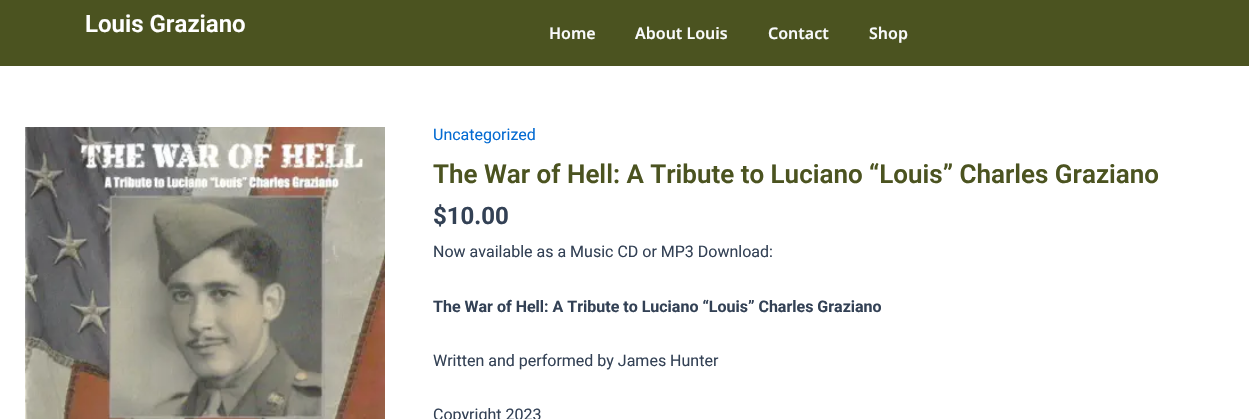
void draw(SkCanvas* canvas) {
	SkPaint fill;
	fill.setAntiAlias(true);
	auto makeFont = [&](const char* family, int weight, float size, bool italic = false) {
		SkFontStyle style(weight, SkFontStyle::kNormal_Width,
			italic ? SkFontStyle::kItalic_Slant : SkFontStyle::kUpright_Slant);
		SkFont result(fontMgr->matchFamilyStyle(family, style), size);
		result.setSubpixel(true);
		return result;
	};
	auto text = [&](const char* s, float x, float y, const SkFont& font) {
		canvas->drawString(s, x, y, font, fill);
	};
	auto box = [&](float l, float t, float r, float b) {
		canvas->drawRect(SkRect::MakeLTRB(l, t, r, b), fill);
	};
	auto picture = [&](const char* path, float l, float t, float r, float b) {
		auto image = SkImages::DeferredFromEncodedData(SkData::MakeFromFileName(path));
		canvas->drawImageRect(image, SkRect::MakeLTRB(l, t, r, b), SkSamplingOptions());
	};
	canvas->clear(0xFFFFFFFF);
	fill.setColor(0xFF4B5320);
	box(0, 0, 1249, 66);
	picture("image0.png", 25, 127, 385, 419);
	auto font1 = makeFont("Roboto", 600, 24);
	fill.setColor(0xFFFFFFFF);
	text("Louis Graziano", 85, 32, font1);
	auto font2 = makeFont("Noto Sans", 600, 16);
	fill.setColor(0xFFF9FAFB);
	text("Home", 549, 39, font2);
	text("About Louis", 635, 39, font2);
	text("Contact", 768, 39, font2);
	text("Shop", 869, 39, font2);
	auto font3 = makeFont("Roboto", 400, 16);
	fill.setColor(0xFF046BD2);
	text("Uncategorized", 433, 140, font3);
	auto font4 = makeFont("Roboto", 600, 26);
	fill.setColor(0xFF4B5320);
	text("The War of Hell: A Tribute to Luciano “Louis” Charles Graziano", 433, 183, font4);
	auto font5 = makeFont("Roboto", 700, 24);
	fill.setColor(0xFF334155);
	text("$10.00", 433, 224, font5);
	text("Now available as a Music CD or MP3 Download:", 433, 257, font3);
	auto font6 = makeFont("Roboto", 700, 16);
	text("The War of Hell: A Tribute to Luciano “Louis” Charles Graziano", 433, 312, font6);
	text("Written and performed by James Hunter", 433, 366, font3);
	text("Copyright 2023", 433, 420, font3);
}
